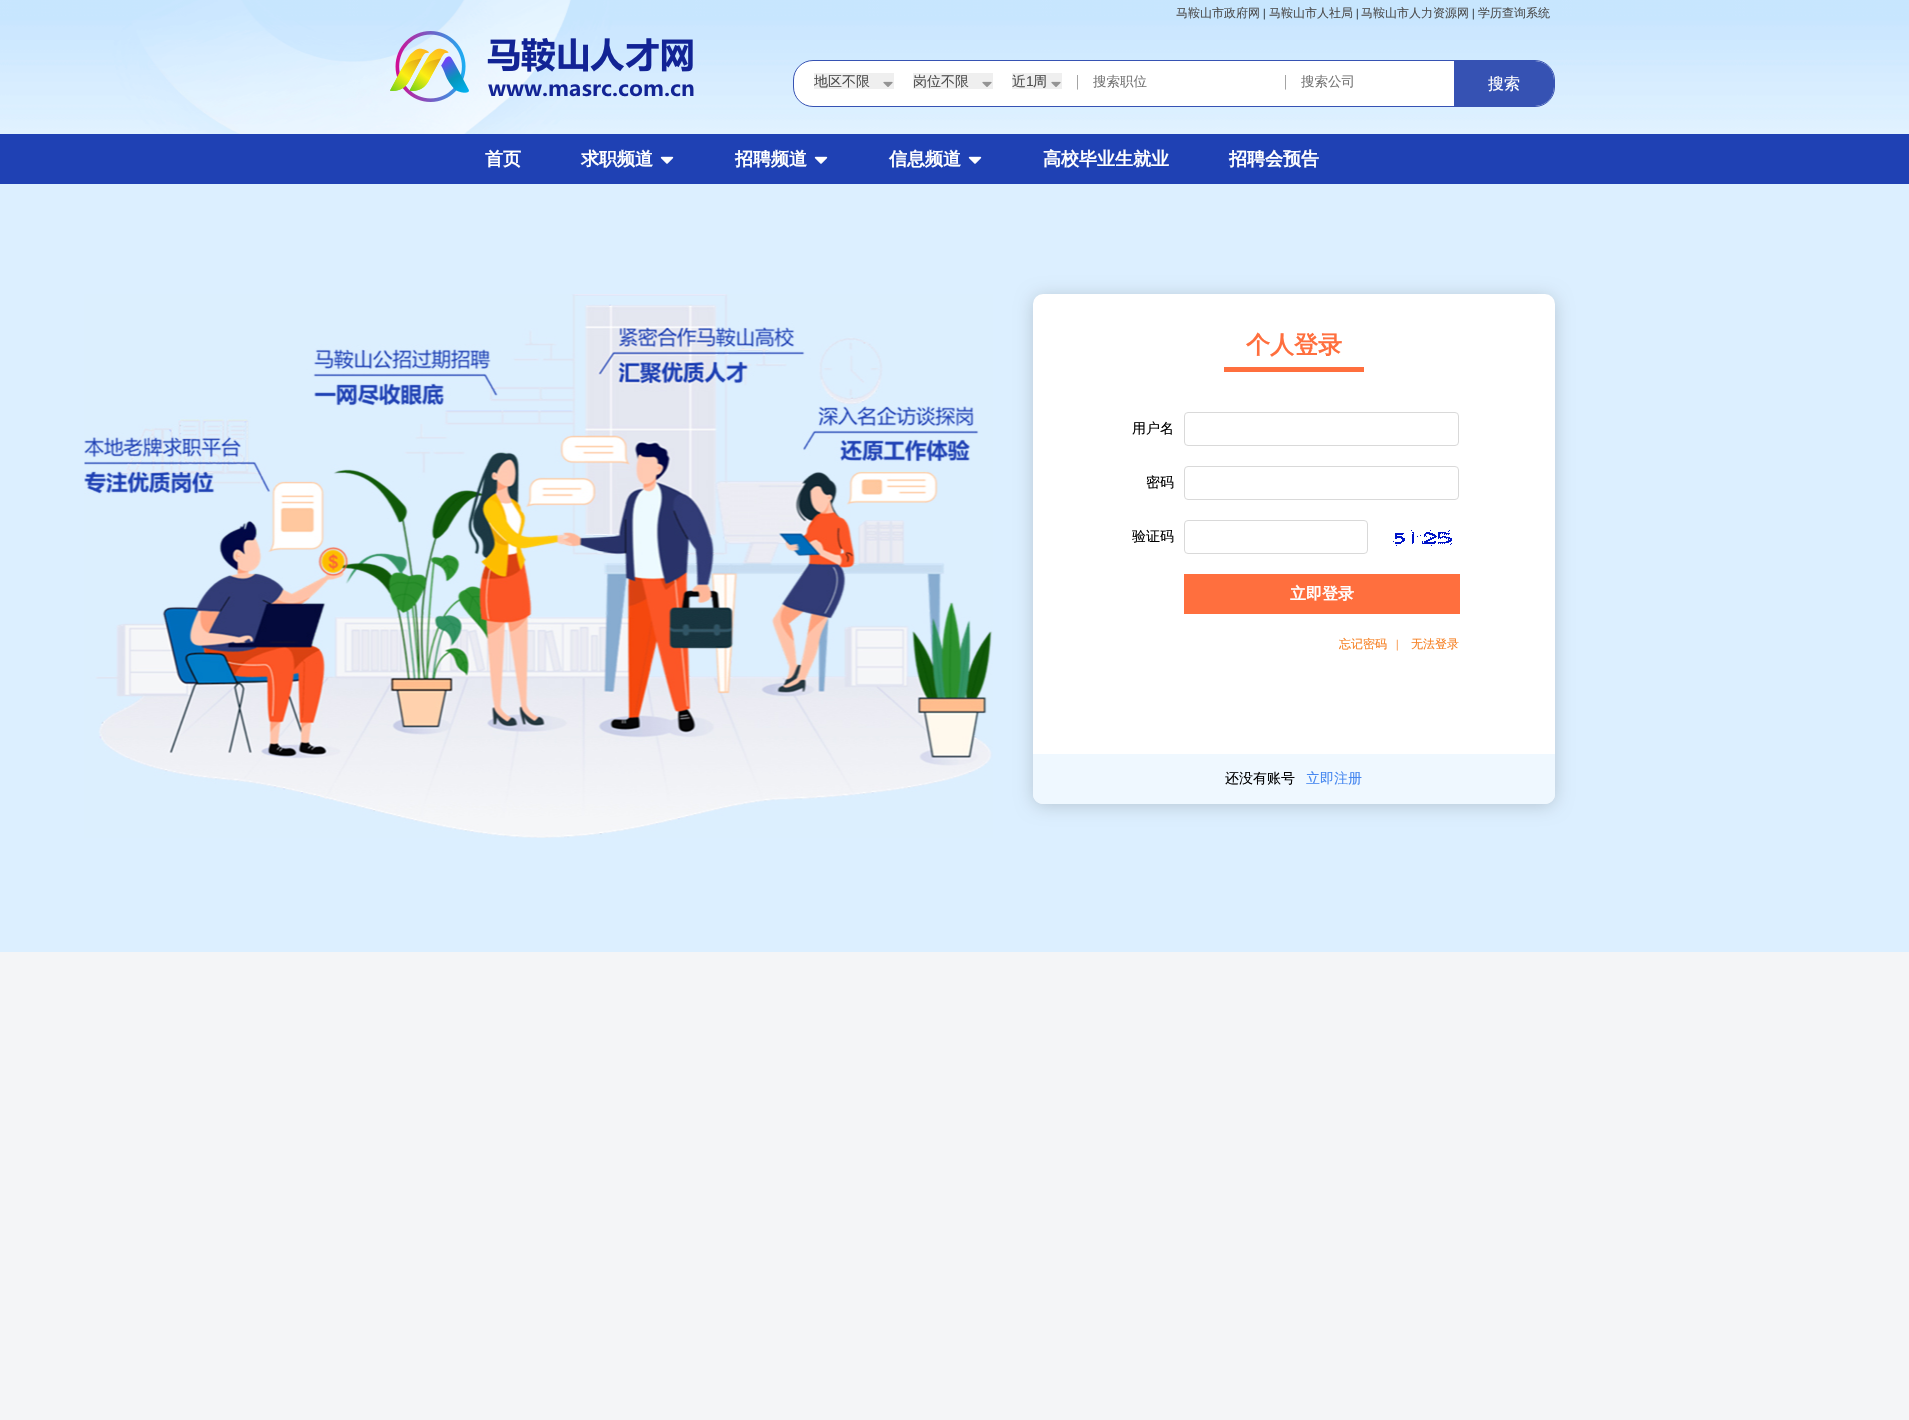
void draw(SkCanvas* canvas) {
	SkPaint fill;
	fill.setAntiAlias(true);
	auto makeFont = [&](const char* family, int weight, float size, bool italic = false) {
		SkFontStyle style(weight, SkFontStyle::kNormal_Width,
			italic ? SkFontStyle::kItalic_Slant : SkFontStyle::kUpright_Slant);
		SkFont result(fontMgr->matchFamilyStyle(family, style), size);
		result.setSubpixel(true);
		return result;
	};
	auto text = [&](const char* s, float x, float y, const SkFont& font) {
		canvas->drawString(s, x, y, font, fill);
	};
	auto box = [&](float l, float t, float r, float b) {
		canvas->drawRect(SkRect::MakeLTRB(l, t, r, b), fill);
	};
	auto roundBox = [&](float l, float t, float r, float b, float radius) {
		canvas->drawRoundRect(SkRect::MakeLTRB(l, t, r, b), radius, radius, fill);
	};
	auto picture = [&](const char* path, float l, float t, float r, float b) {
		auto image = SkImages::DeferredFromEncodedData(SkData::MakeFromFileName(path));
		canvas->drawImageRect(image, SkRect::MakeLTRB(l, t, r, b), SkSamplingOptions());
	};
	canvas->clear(0xFFF4F5F7);
	picture("image0.png", 0, 0, 1909, 134);
	picture("image1.png", 390, 31, 694, 102);
	fill.setColor(0xFFFFFFFF);
	canvas->drawRoundRect(SkRect::MakeLTRB(793.5f, 60.5f, 1554.5f, 106.5f), 19.5f, 19.5f, fill);
	fill.setStyle(SkPaint::kStroke_Style);
	fill.setStrokeWidth(1);
	fill.setColor(0xFF3652B3);
	canvas->drawRoundRect(SkRect::MakeLTRB(793.5f, 60.5f, 1554.5f, 106.5f), 19.5f, 19.5f, fill);
	fill.setStyle(SkPaint::kFill_Style);
	fill.setColor(0xFFEFEFEF);
	box(814, 73, 894, 89);
	picture("image2.png", 883, 81, 893, 87);
	box(913, 73, 993, 89);
	picture("image2.png", 982, 81, 992, 87);
	box(1012, 73, 1062, 89);
	picture("image2.png", 1051, 81, 1061, 87);
	fill.setColor(0xFF3652B3);
	canvas->drawPath(SkPathBuilder().moveTo(1454, 61).lineTo(1535, 61).cubicTo(1545.5f, 61, 1554, 69.5f, 1554, 80).lineTo(1554, 87).cubicTo(1554, 97.5f, 1545.5f, 106, 1535, 106).lineTo(1454, 106).close().detach(), fill);
	fill.setColor(0xFF1F41B4);
	box(0, 134, 1909, 184);
	picture("image3.png", 660, 156, 674, 164);
	picture("image3.png", 814, 156, 828, 164);
	picture("image3.png", 968, 156, 982, 164);
	fill.setColor(0xFFDCEFFF);
	box(0, 184, 1909, 952);
	picture("image4.png", 84, 294, 993, 838);
	fill.setColor(0x2B000000);
	fill.setMaskFilter(SkMaskFilter::MakeBlur(kNormal_SkBlurStyle, 8.5f));
	canvas->drawRoundRect(SkRect::MakeLTRB(1033, 296, 1555, 806), 10, 10, fill);
	fill.setMaskFilter(nullptr);
	fill.setColor(0xFFFFFFFF);
	roundBox(1033, 294, 1555, 804, 10);
	fill.setColor(0xFFFF6F3E);
	box(1224, 367, 1364, 372);
	fill.setStyle(SkPaint::kStroke_Style);
	fill.setColor(0xFFD9D9D9);
	canvas->drawRoundRect(SkRect::MakeLTRB(1184.5f, 412.5f, 1458.5f, 445.5f), 3.5f, 3.5f, fill);
	canvas->drawRoundRect(SkRect::MakeLTRB(1184.5f, 466.5f, 1458.5f, 499.5f), 3.5f, 3.5f, fill);
	canvas->drawRoundRect(SkRect::MakeLTRB(1184.5f, 520.5f, 1367.5f, 553.5f), 3.5f, 3.5f, fill);
	picture("image5.png", 1393, 530, 1452, 546);
	fill.setStyle(SkPaint::kFill_Style);
	fill.setColor(0xFFFF6F3E);
	box(1184, 574, 1460, 614);
	fill.setColor(0xFFEFF8FF);
	canvas->drawPath(SkPathBuilder().moveTo(1033, 754).lineTo(1555, 754).lineTo(1555, 794).cubicTo(1555, 799.5f, 1550.5f, 804, 1545, 804).lineTo(1043, 804).cubicTo(1037.5f, 804, 1033, 799.5f, 1033, 794).close().detach(), fill);
	auto font1 = makeFont("WenQuanYi Zen Hei", 500, 12);
	fill.setColor(0xFF4E4E4E);
	text("马鞍山市政府网", 1176, 17, font1);
	auto font2 = makeFont("Liberation Serif", 400, 12);
	fill.setColor(0xFF000000);
	text("|", 1263, 17, font2);
	fill.setColor(0xFF4E4E4E);
	text("马鞍山市人社局", 1269, 17, font1);
	fill.setColor(0xFF000000);
	text("|", 1356, 17, font2);
	fill.setColor(0xFF4E4E4E);
	text("马鞍山市人力资源网", 1361, 17, font1);
	fill.setColor(0xFF000000);
	text("|", 1472, 17, font2);
	fill.setColor(0xFF4E4E4E);
	text("学历查询系统", 1478, 17, font1);
	canvas->save();
	canvas->clipRect(SkRect::MakeLTRB(814, 73, 894, 89));
	auto font3 = makeFont("WenQuanYi Zen Hei", 500, 14);
	text("地区不限", 814, 86, font3);
	canvas->restore();
	text("岗位不限", 913, 86, font3);
	text("近", 1012, 86, font3);
	auto font4 = makeFont("Liberation Sans", 400, 14);
	text("1", 1026, 86, font4);
	text("周", 1033, 86, font3);
	auto font5 = makeFont("Liberation Serif", 400, 16);
	fill.setColor(0xFF949494);
	text("|", 1076, 86, font5);
	auto font6 = makeFont("WenQuanYi Zen Hei", 500, 13.5f);
	fill.setColor(0xFF757575);
	text("搜索职位", 1093, 86, font6);
	fill.setColor(0xFF949494);
	text("|", 1284, 86, font5);
	fill.setColor(0xFF757575);
	text("搜索公司", 1301, 86, font6);
	auto font7 = makeFont("WenQuanYi Zen Hei", 500, 16);
	fill.setColor(0xFFFFFFFF);
	text("搜索", 1488, 89, font7);
	auto font8 = makeFont("WenQuanYi Zen Hei", 700, 18);
	text("首页", 485, 165, font8);
	text("求职频道", 581, 165, font8);
	text("招聘频道", 735, 165, font8);
	text("信息频道", 889, 165, font8);
	text("高校毕业生就业", 1043, 165, font8);
	text("招聘会预告", 1229, 165, font8);
	auto font9 = makeFont("WenQuanYi Zen Hei", 700, 24);
	fill.setColor(0xFFFF6F3E);
	text("个人登录", 1246, 353, font9);
	fill.setColor(0xFF000000);
	text("用户名", 1132, 433, font3);
	text("密码", 1146, 487, font3);
	text("验证码", 1132, 541, font3);
	auto font10 = makeFont("WenQuanYi Zen Hei", 700, 16);
	fill.setColor(0xFFFFFFFF);
	text("立即登录", 1290, 599, font10);
	fill.setColor(0xFFF68022);
	text("忘记密码", 1339, 648, font1);
	text("|", 1396, 648, font2);
	text("无法登录", 1411, 648, font1);
	fill.setColor(0xFF000000);
	text("还没有账号", 1225, 783, font3);
	fill.setColor(0xFF4788F0);
	text("立即注册", 1306, 783, font3);
}
